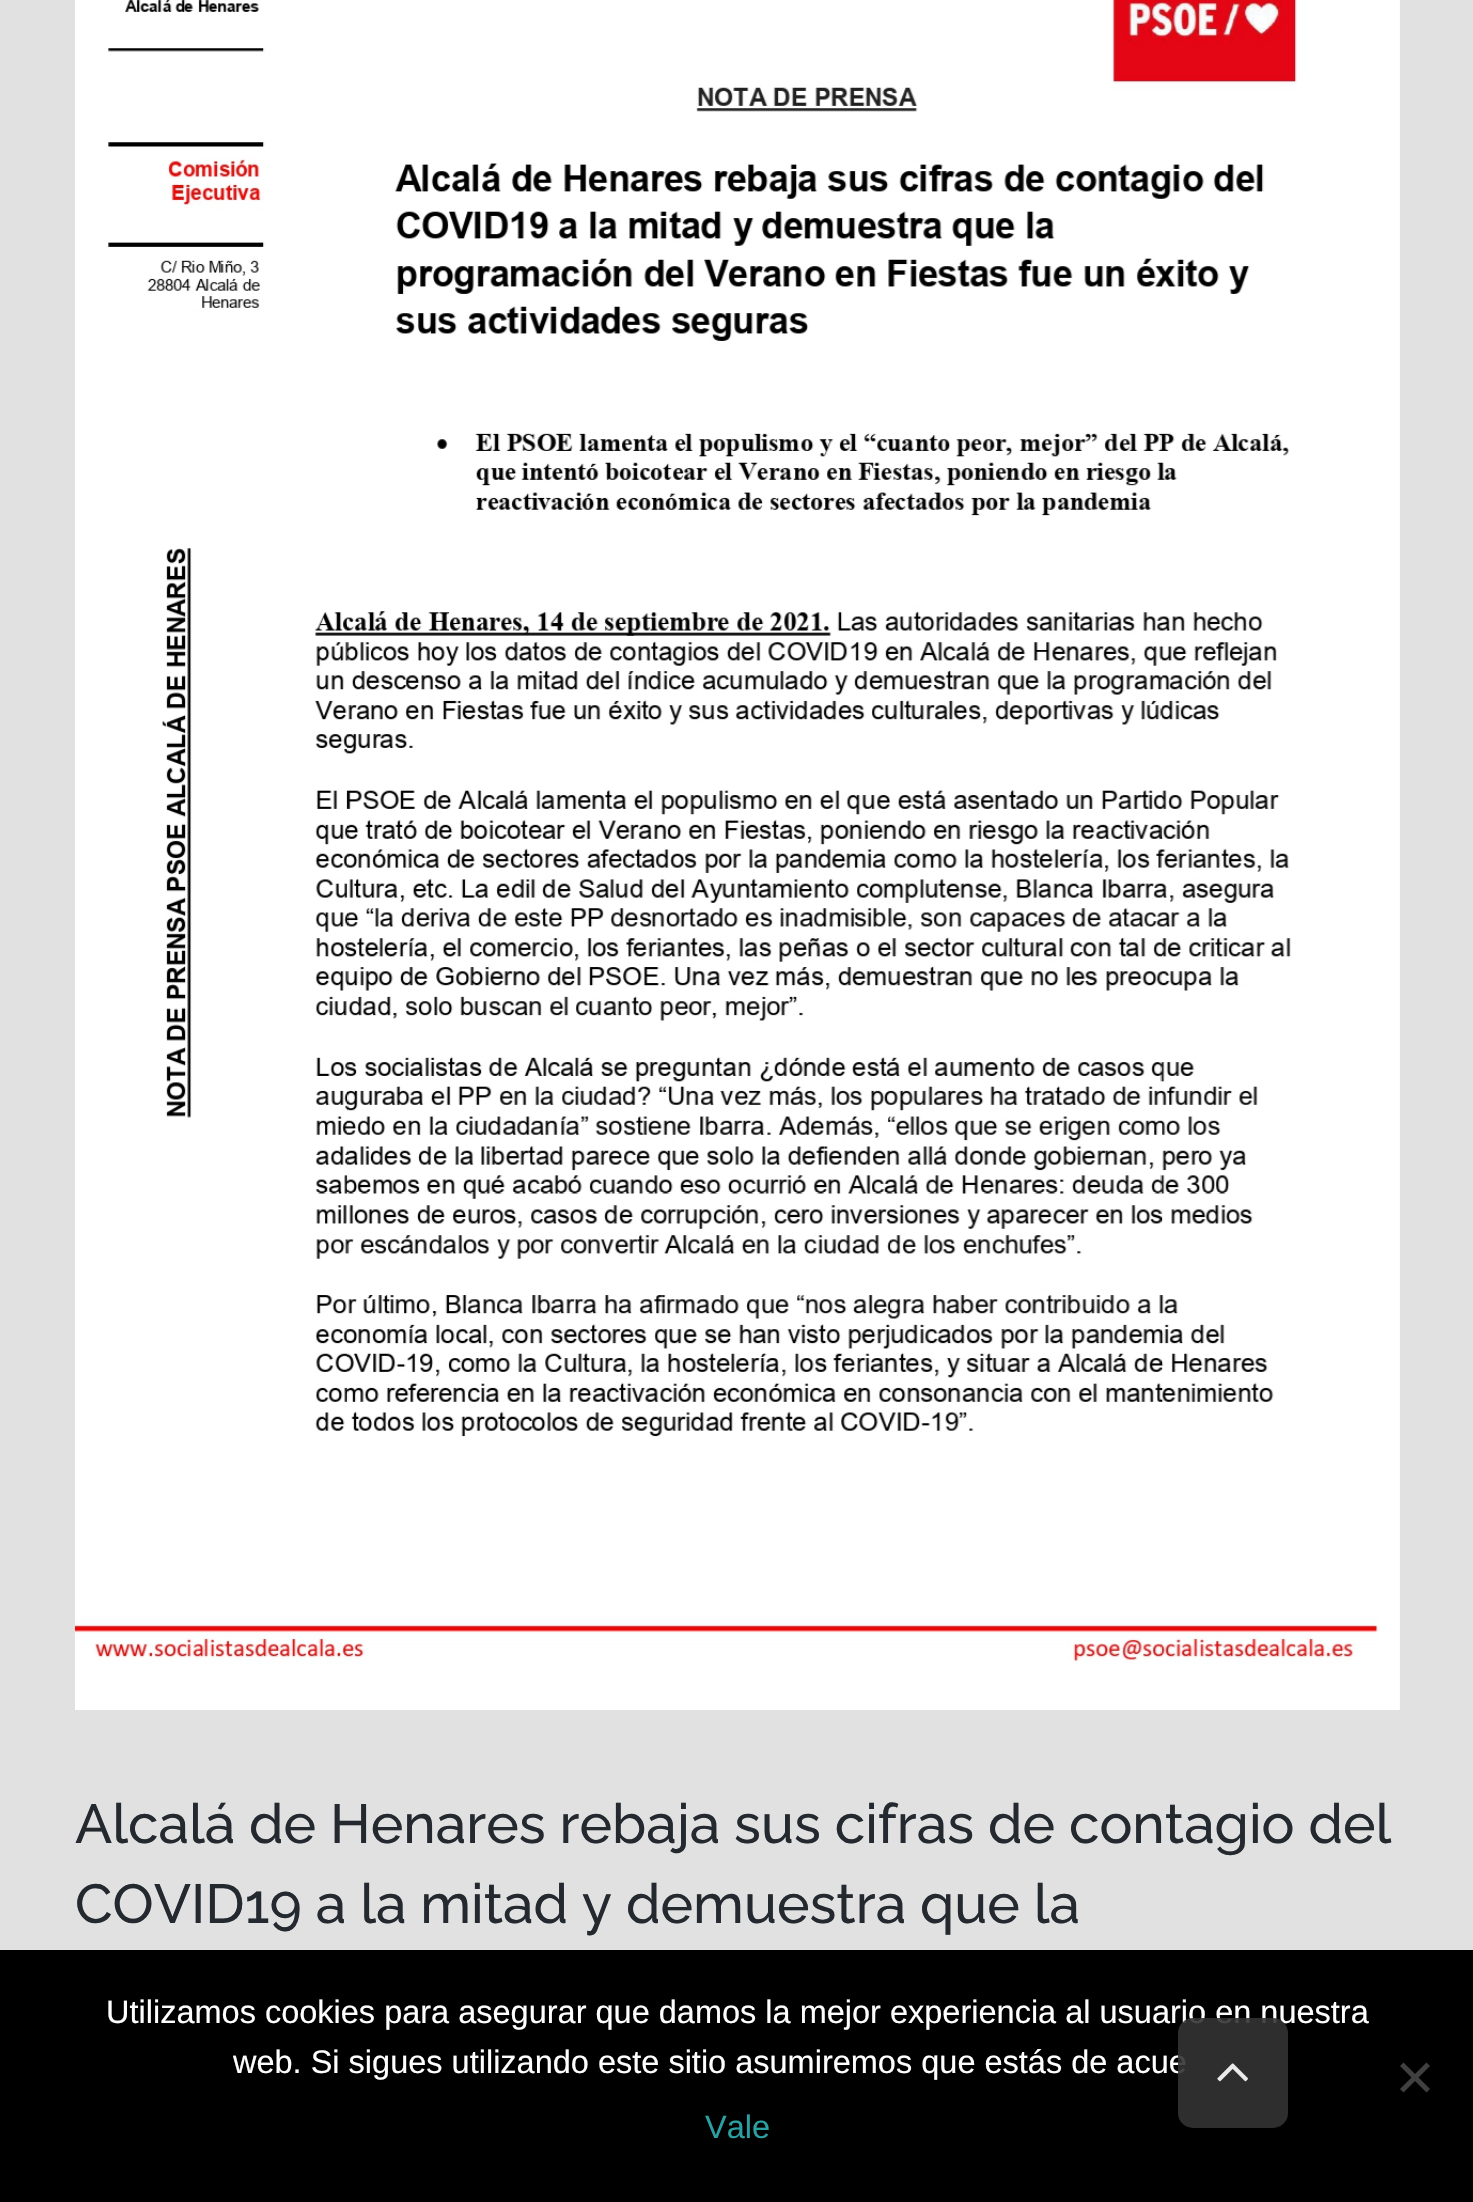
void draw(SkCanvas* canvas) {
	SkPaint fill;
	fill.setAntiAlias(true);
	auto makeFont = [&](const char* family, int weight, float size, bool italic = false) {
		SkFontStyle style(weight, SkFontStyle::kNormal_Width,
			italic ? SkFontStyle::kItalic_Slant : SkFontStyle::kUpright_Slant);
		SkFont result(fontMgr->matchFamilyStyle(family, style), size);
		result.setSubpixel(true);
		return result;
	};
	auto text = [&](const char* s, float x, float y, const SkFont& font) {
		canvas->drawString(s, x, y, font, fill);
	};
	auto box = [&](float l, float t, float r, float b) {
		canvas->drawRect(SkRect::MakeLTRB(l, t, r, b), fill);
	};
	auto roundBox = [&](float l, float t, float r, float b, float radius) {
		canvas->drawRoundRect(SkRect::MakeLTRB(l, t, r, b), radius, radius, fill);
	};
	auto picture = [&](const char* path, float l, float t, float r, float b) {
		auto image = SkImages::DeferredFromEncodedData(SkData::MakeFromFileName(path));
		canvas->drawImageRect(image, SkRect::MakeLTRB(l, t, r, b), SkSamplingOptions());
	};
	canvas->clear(0xFFE1E1E1);
	picture("image0.png", 75, 0, 1400, 1710);
	fill.setColor(0xFF000000);
	box(0, 1950, 1473, 2202);
	fill.setColor(0xFF404040);
	canvas->drawPath(SkPathBuilder().moveTo(1426.5f, 2062.5f).lineTo(1430, 2066).lineTo(1403.5f, 2092.5f).lineTo(1400, 2089).close().detach(), fill);
	canvas->drawPath(SkPathBuilder().moveTo(1400, 2066).lineTo(1403.5f, 2062.5f).lineTo(1430, 2089).lineTo(1426.5f, 2092.5f).close().detach(), fill);
	auto font1 = makeFont("Raleway", 100, 55);
	fill.setColor(0xFF242930);
	text("Alcalá de Henares rebaja sus cifras de contagio del", 75, 1843, font1);
	text("COVID19 a la mitad y demuestra que la", 75, 1923, font1);
	auto font2 = makeFont("Liberation Sans", 400, 32.5f);
	fill.setColor(0xFFFFFFFF);
	text("Utilizamos cookies para asegurar que damos la mejor experiencia al usuario en nuestra", 106, 2023, font2);
	text("web. Si sigues utilizando este sitio asumiremos que estás de acue", 233, 2073, font2);
	fill.setColor(0xFF2BA0A3);
	text("Vale", 705, 2138, font2);
	fill.setColor(0xE6333333);
	roundBox(1178, 2018, 1288, 2128, 15);
	picture("image1.png", 1217, 2063, 1248, 2082);
}
